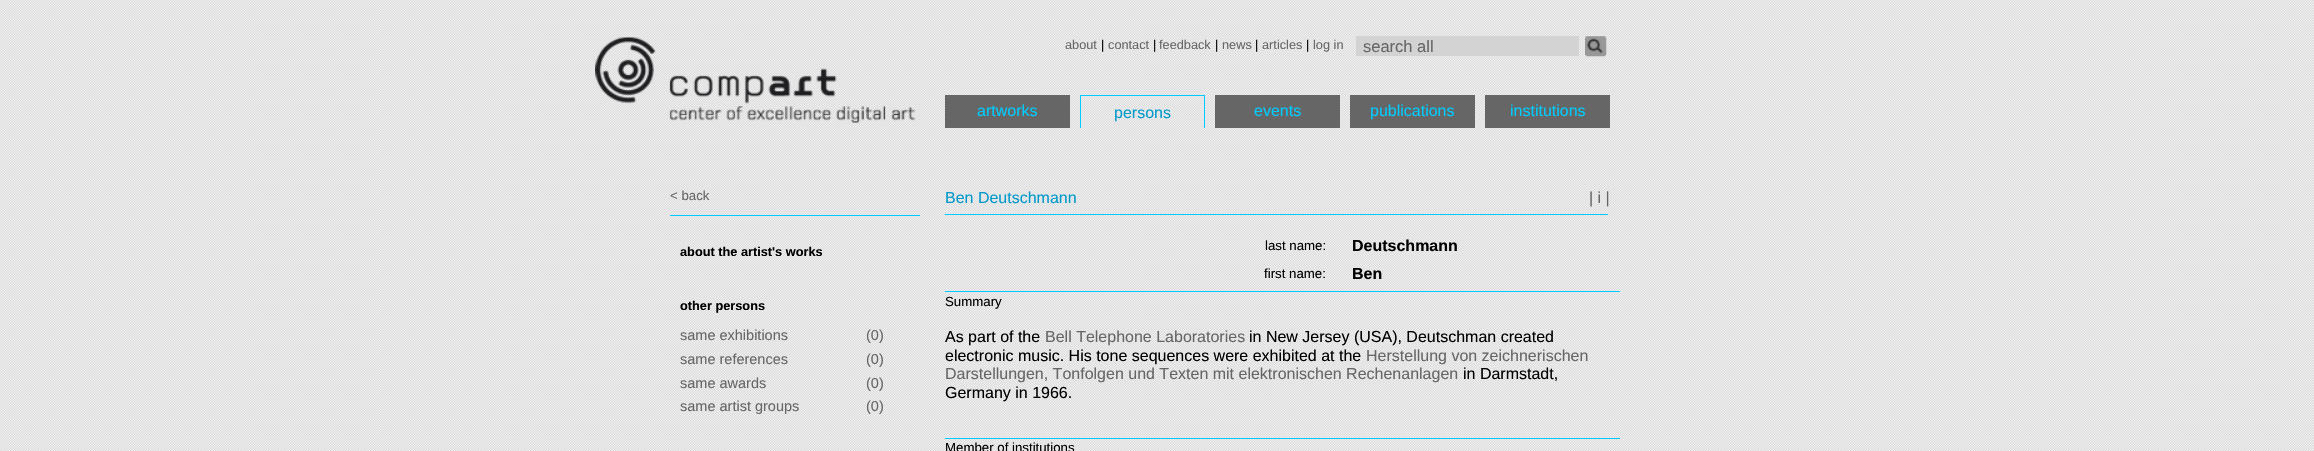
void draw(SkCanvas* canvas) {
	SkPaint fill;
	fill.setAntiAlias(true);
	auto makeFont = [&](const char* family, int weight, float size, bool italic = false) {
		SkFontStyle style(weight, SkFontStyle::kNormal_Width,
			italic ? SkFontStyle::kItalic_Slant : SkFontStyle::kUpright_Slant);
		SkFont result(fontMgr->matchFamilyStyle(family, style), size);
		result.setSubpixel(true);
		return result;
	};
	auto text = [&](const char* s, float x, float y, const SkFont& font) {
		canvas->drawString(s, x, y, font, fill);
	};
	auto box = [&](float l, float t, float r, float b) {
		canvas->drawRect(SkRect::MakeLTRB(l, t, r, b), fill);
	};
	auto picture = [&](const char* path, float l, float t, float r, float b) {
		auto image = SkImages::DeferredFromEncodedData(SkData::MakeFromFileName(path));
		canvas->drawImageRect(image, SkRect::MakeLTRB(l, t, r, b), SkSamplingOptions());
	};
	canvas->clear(0xFFFFFFFF);
	picture("image0.png", 0, 0, 2314, 451);
	picture("image1.png", 595, 37, 916, 123);
	fill.setColor(0xFFD3D3D3);
	box(1356, 36, 1579, 56);
	box(1585, 36, 1606, 56);
	picture("image2.png", 1585, 36, 1607, 57);
	fill.setColor(0xFF666666);
	box(945, 95, 1070, 128);
	fill.setColor(0xFF00CCFF);
	box(1080, 95, 1205, 96);
	box(1204, 95, 1205, 128);
	box(1080, 95, 1081, 128);
	fill.setColor(0xFF666666);
	box(1215, 95, 1340, 128);
	box(1350, 95, 1475, 128);
	box(1485, 95, 1610, 128);
	fill.setColor(0xFF00CCFF);
	box(945, 214, 1608, 215);
	box(670, 215, 920, 216);
	box(945, 291, 1620, 292);
	box(945, 438, 1620, 439);
	auto font1 = makeFont("Liberation Sans", 400, 12.75f);
	fill.setColor(0xFF666666);
	text("about", 1065, 49, font1);
	fill.setColor(0xFF000000);
	text("|", 1101, 49, font1);
	fill.setColor(0xFF666666);
	text("contact", 1108, 49, font1);
	fill.setColor(0xFF000000);
	text("|", 1153, 49, font1);
	fill.setColor(0xFF666666);
	text("feedback", 1159, 49, font1);
	fill.setColor(0xFF000000);
	text("|", 1215, 49, font1);
	fill.setColor(0xFF666666);
	text("news", 1222, 49, font1);
	fill.setColor(0xFF000000);
	text("|", 1255, 49, font1);
	fill.setColor(0xFF666666);
	text("articles", 1262, 49, font1);
	fill.setColor(0xFF000000);
	text("|", 1306, 49, font1);
	fill.setColor(0xFF666666);
	text("log in", 1313, 49, font1);
	auto font2 = makeFont("Liberation Sans", 400, 16.5f);
	text("search all", 1363, 52, font2);
	auto font3 = makeFont("Liberation Sans", 400, 16);
	fill.setColor(0xFF00CCFF);
	text("artworks", 977, 116, font3);
	fill.setColor(0xFF0099CC);
	text("persons", 1114, 118, font3);
	fill.setColor(0xFF00CCFF);
	text("events", 1254, 116, font3);
	text("publications", 1370, 116, font3);
	text("institutions", 1510, 116, font3);
	auto font4 = makeFont("Liberation Sans", 400, 13.25f);
	fill.setColor(0xFF666666);
	text("< back", 670, 200, font4);
	fill.setColor(0xFF0099CC);
	text("Ben Deutschmann", 945, 203, font3);
	fill.setColor(0xFF666666);
	text("| i |", 1589, 203, font3);
	auto font5 = makeFont("Liberation Sans", 700, 12.75f);
	fill.setColor(0xFF000000);
	text("about the artist's works", 680, 256, font5);
	text("other persons", 680, 310, font5);
	auto font6 = makeFont("Liberation Sans", 400, 14.5f);
	fill.setColor(0xFF666666);
	text("same exhibitions", 680, 340, font6);
	text("(0)", 866, 340, font6);
	text("same references", 680, 364, font6);
	text("(0)", 866, 364, font6);
	text("same awards", 680, 388, font6);
	text("(0)", 866, 388, font6);
	text("same artist groups", 680, 411, font6);
	text("(0)", 866, 411, font6);
	fill.setColor(0xFF000000);
	text("last name:", 1265, 250, font4);
	auto font7 = makeFont("Liberation Sans", 700, 16);
	text("Deutschmann", 1352, 251, font7);
	text("first name:", 1264, 278, font4);
	text("Ben", 1352, 279, font7);
	text("Summary", 945, 306, font4);
	text("As part of the", 945, 342, font3);
	fill.setColor(0xFF666666);
	text("Bell Telephone Laboratories", 1045, 342, font3);
	fill.setColor(0xFF000000);
	text("in New Jersey (USA), Deutschman created", 1249, 342, font3);
	text("electronic music. His tone sequences were exhibited at the", 945, 361, font3);
	fill.setColor(0xFF666666);
	text("Herstellung von zeichnerischen", 1366, 361, font3);
	text("Darstellungen, Tonfolgen und Texten mit elektronischen Rechenanlagen", 945, 379, font3);
	fill.setColor(0xFF000000);
	text("in Darmstadt,", 1463, 379, font3);
	text("Germany in 1966.", 945, 398, font3);
	text("Member of institutions", 945, 452, font4);
}
